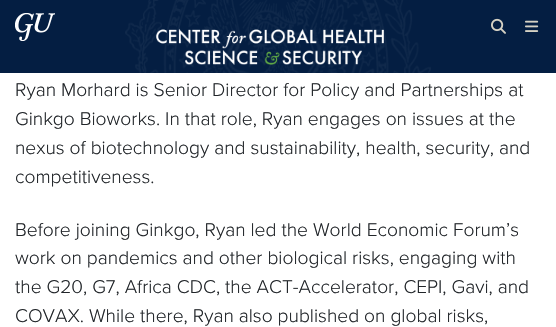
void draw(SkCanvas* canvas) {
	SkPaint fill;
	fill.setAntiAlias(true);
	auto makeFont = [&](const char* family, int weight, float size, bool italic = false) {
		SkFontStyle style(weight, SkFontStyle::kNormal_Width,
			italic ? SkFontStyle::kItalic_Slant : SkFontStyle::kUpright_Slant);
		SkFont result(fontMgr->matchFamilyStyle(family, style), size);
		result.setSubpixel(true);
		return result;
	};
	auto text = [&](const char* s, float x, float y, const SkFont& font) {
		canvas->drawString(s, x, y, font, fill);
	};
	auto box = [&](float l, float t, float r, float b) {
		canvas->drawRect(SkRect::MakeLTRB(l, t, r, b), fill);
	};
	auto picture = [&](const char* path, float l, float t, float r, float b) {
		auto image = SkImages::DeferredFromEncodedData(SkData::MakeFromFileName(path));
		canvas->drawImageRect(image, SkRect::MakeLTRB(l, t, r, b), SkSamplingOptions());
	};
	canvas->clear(0xFFFFFFFF);
	fill.setColor(0xFF041E42);
	box(0, 0, 556, 73);
	picture("image0.png", 125, 0, 431, 73);
	picture("image1.png", 15, 13, 55, 41);
	picture("image2.png", 491, 18, 506, 34);
	picture("image3.png", 525, 20, 539, 32);
	picture("image4.png", 156, 28, 384, 65);
	auto font1 = makeFont("Proxima Nova", 300, 19.2f);
	fill.setColor(0xFF212529);
	text("Ryan Morhard is Senior Director for Policy and Partnerships at", 15, 96, font1);
	text("Ginkgo Bioworks. In that role, Ryan engages on issues at the", 15, 125, font1);
	text("nexus of biotechnology and sustainability, health, security, and", 15, 154, font1);
	text("competitiveness.", 15, 183, font1);
	text("Before joining Ginkgo, Ryan led the World Economic Forum’s", 15, 236, font1);
	text("work on pandemics and other biological risks, engaging with", 15, 264, font1);
	text("the G20, G7, Africa CDC, the ACT-Accelerator, CEPI, Gavi, and", 15, 293, font1);
	text("COVAX. While there, Ryan also published on global risks,", 15, 322, font1);
}
